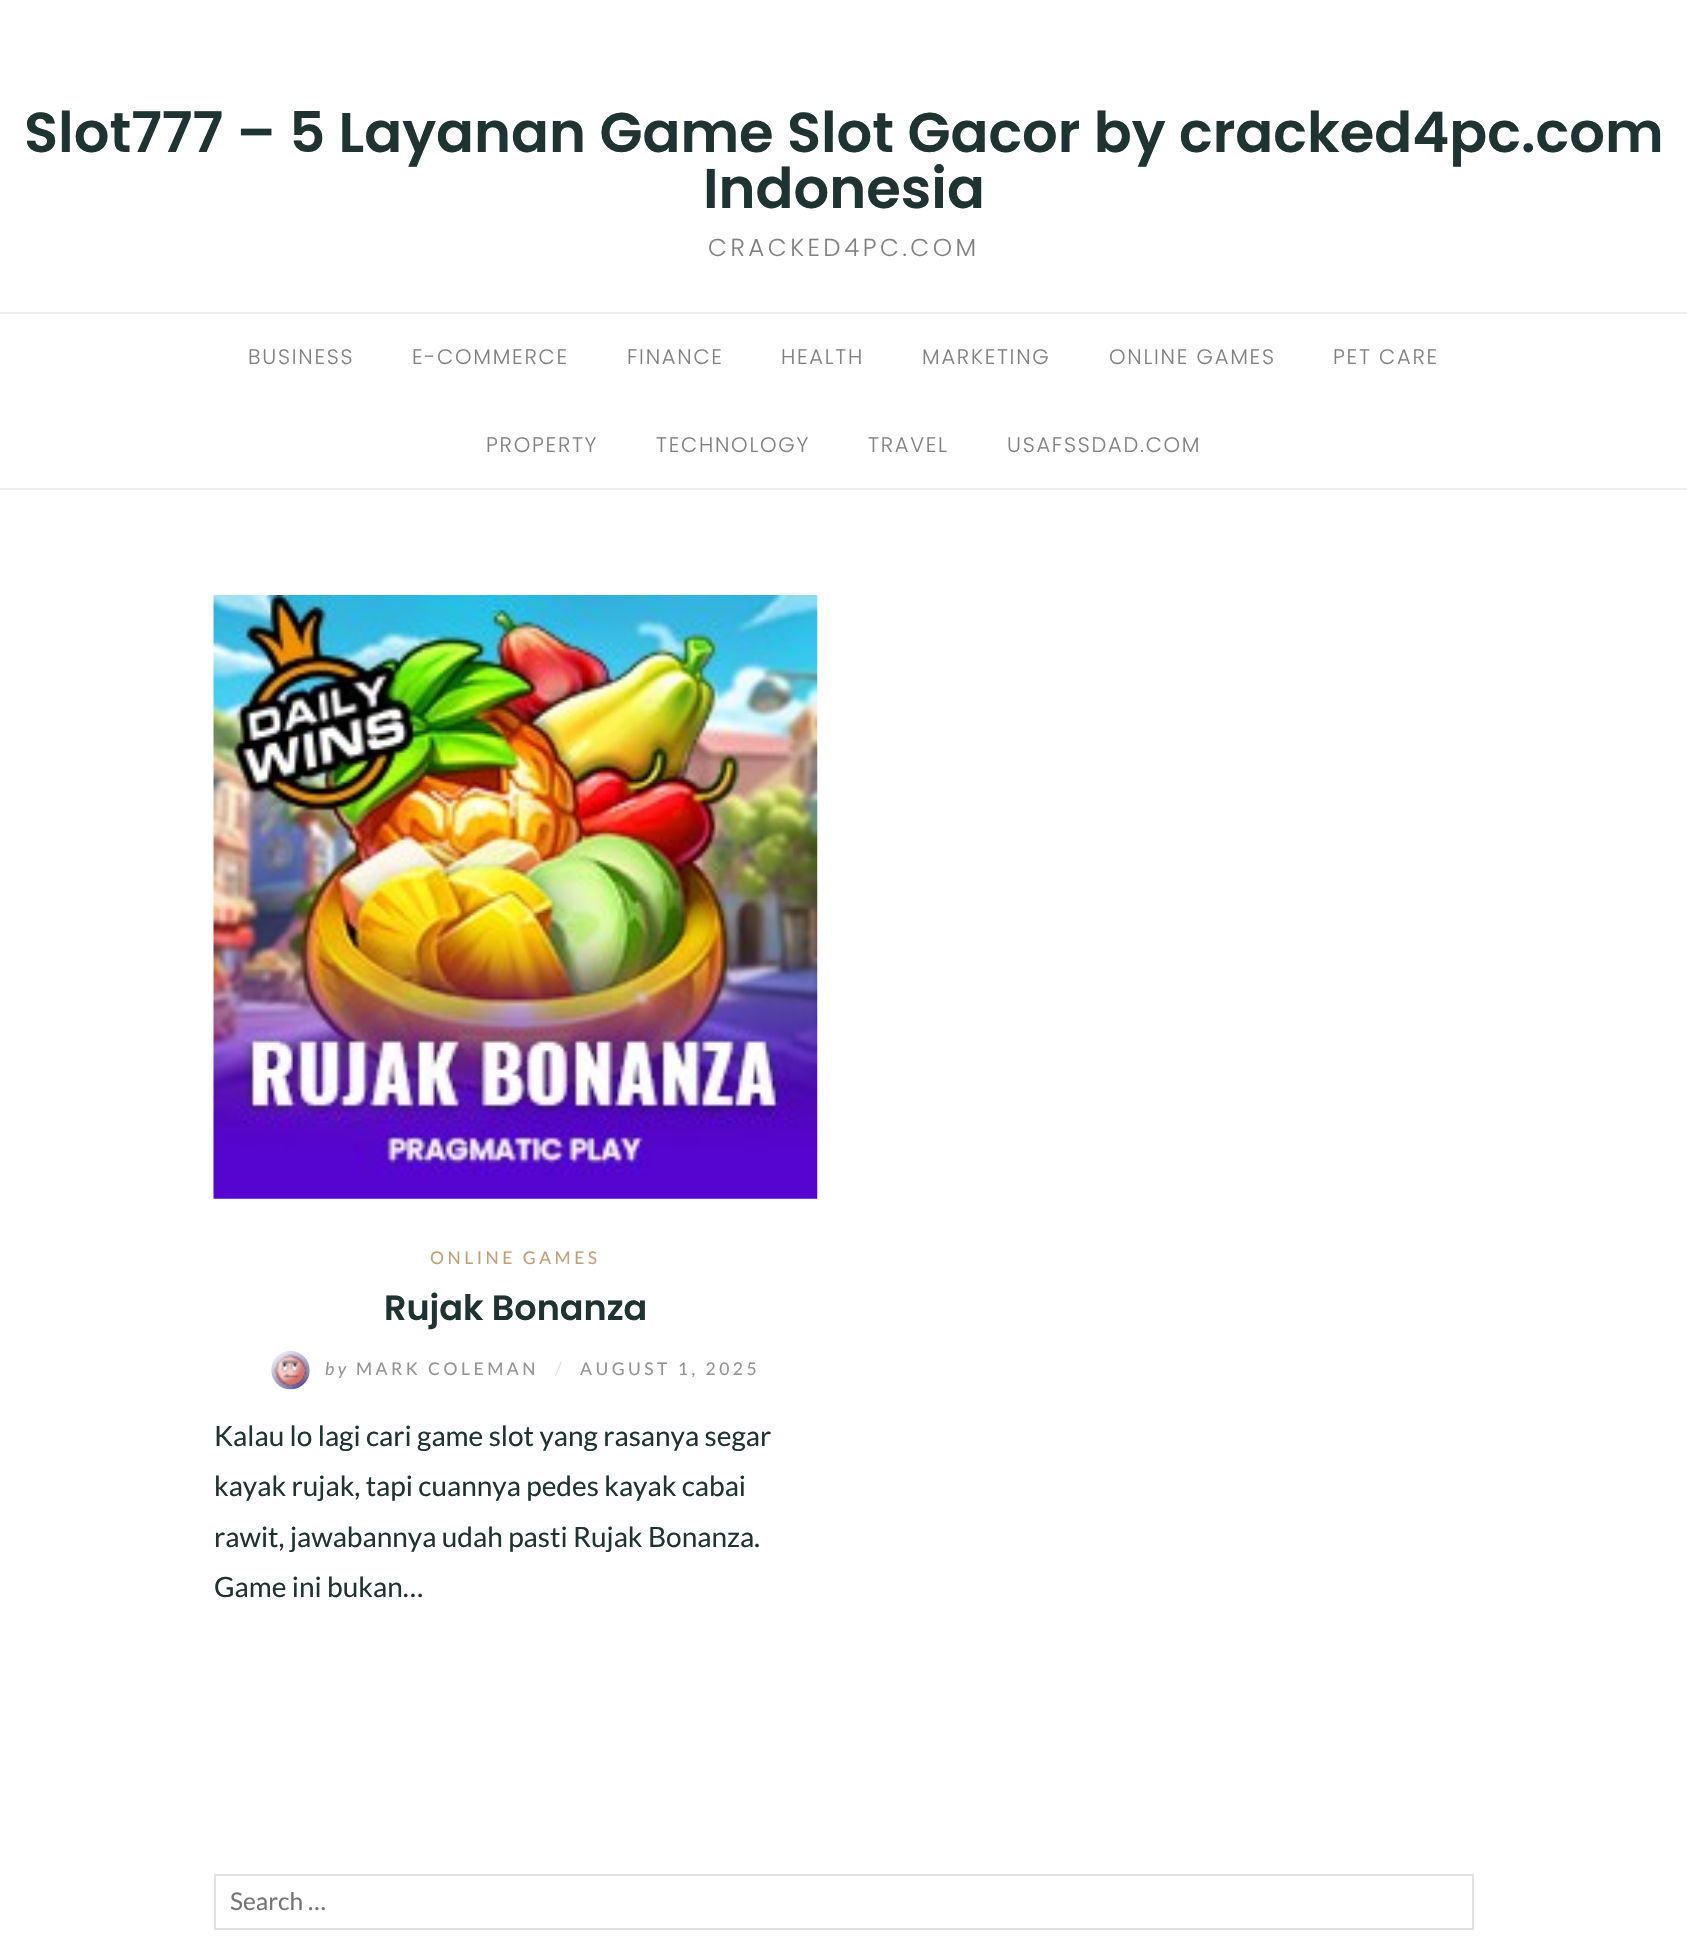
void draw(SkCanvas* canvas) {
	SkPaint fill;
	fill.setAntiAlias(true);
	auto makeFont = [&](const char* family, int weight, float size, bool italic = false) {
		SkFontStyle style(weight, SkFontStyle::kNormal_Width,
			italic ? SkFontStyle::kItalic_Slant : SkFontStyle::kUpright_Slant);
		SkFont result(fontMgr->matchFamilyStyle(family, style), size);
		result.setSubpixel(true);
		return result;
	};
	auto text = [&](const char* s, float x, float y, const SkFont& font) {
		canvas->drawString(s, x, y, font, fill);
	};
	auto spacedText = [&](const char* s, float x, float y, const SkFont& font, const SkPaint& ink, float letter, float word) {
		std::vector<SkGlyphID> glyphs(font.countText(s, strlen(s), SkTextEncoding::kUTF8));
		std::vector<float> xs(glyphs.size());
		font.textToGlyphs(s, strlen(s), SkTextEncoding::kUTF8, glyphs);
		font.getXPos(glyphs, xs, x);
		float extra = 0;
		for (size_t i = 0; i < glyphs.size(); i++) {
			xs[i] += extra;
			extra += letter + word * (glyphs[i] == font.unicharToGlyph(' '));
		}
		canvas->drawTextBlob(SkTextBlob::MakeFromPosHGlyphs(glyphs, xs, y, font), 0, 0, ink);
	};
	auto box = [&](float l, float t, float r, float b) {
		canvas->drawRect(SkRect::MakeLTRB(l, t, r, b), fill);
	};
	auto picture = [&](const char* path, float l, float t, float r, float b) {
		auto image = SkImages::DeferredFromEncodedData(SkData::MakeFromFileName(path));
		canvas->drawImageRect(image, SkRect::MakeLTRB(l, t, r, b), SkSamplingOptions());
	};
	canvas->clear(0xFFFFFFFF);
	fill.setColor(0xFFEEEEEE);
	box(0, 312, 1687, 314);
	box(0, 488, 1687, 490);
	picture("image0.png", 213, 595, 818, 1199);
	picture("image1.png", 271, 1351, 310, 1390);
	fill.setStyle(SkPaint::kStroke_Style);
	fill.setStrokeWidth(2);
	fill.setColor(0xFFE1E1E1);
	canvas->drawRect(SkRect::MakeLTRB(215, 1875, 1473, 1929), fill);
	auto font1 = makeFont("Poppins", 600, 56);
	fill.setStyle(SkPaint::kFill_Style);
	fill.setColor(0xFF1F3331);
	text("Slot777 – 5 Layanan Game Slot Gacor by cracked4pc.com", 24, 152, font1);
	text("Indonesia", 703, 208, font1);
	auto font2 = makeFont("Poppins", 300, 24.5f);
	fill.setColor(0xFF818181);
	spacedText("CRACKED4PC.COM", 708, 256, font2, fill, 3.5f, 0);
	auto font3 = makeFont("Poppins", 300, 21);
	spacedText("BUSINESS", 248, 364, font3, fill, 1.75f, 0);
	spacedText("E-COMMERCE", 412, 364, font3, fill, 1.75f, 0);
	spacedText("FINANCE", 627, 364, font3, fill, 1.75f, 0);
	spacedText("HEALTH", 781, 364, font3, fill, 1.75f, 0);
	spacedText("MARKETING", 922, 364, font3, fill, 1.75f, 0);
	spacedText("ONLINE GAMES", 1109, 364, font3, fill, 1.75f, 0);
	spacedText("PET CARE", 1333, 364, font3, fill, 1.75f, 0);
	spacedText("PROPERTY", 486, 452, font3, fill, 1.75f, 0);
	spacedText("TECHNOLOGY", 656, 452, font3, fill, 1.75f, 0);
	spacedText("TRAVEL", 868, 452, font3, fill, 1.75f, 0);
	spacedText("USAFSSDAD.COM", 1007, 452, font3, fill, 1.75f, 0);
	auto font4 = makeFont("Lato", 400, 17.5f);
	fill.setColor(0xFFC39F76);
	spacedText("ONLINE GAMES", 430, 1264, font4, fill, 3.5f, 0);
	auto font5 = makeFont("Poppins", 600, 35);
	fill.setColor(0xFF1F3331);
	text("Rujak Bonanza", 384, 1320, font5);
	auto font6 = makeFont("Lato", 400, 17.5f, true);
	fill.setColor(0xFF939393);
	spacedText("by", 325, 1375, font6, fill, 3.5f, 0);
	spacedText("MARK COLEMAN", 356, 1375, font4, fill, 3.5f, 0);
	fill.setColor(0xFFE1E1E1);
	spacedText("/", 555, 1375, font4, fill, 3.5f, 0);
	fill.setColor(0xFF939393);
	spacedText("AUGUST 1, 2025", 580, 1375, font4, fill, 3.5f, 0);
	auto font7 = makeFont("Lato", 400, 28);
	fill.setColor(0xFF1F3331);
	text("Kalau lo lagi cari game slot yang rasanya segar", 214, 1446, font7);
	text("kayak rujak, tapi cuannya pedes kayak cabai", 214, 1496, font7);
	text("rawit, jawabannya udah pasti Rujak Bonanza.", 214, 1547, font7);
	text("Game ini bukan…", 214, 1597, font7);
	auto font8 = makeFont("Lato", 400, 24.5f);
	fill.setColor(0xFF757575);
	text("Search …", 230, 1910, font8);
}
